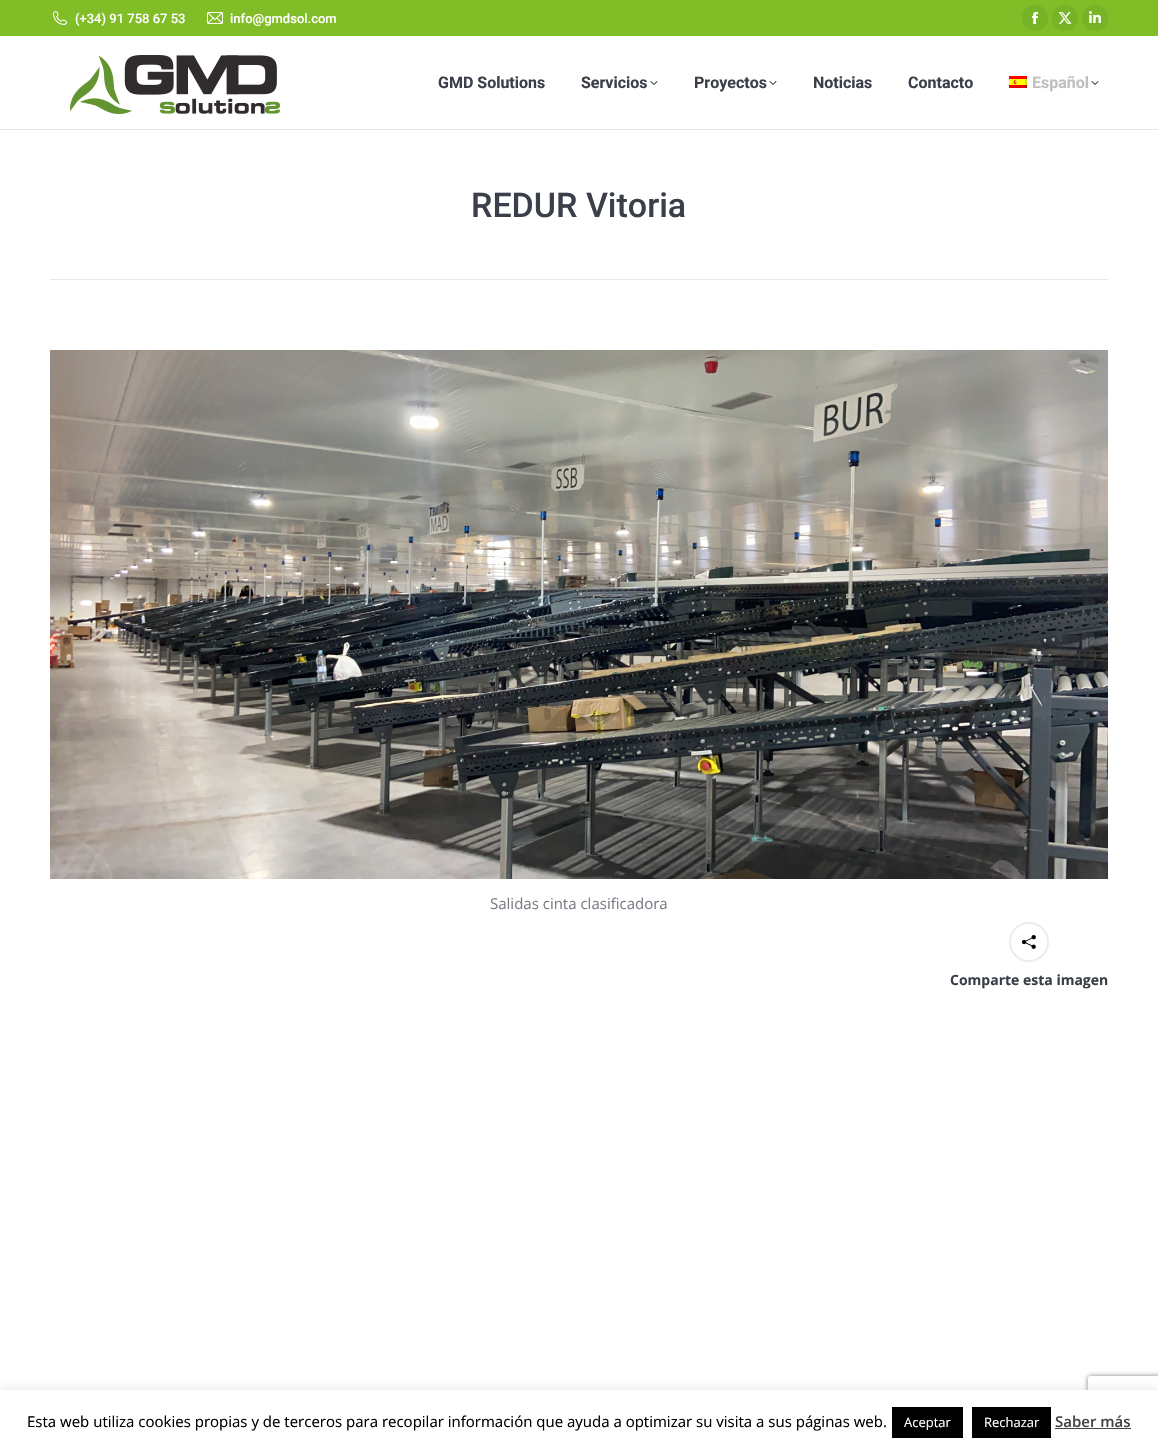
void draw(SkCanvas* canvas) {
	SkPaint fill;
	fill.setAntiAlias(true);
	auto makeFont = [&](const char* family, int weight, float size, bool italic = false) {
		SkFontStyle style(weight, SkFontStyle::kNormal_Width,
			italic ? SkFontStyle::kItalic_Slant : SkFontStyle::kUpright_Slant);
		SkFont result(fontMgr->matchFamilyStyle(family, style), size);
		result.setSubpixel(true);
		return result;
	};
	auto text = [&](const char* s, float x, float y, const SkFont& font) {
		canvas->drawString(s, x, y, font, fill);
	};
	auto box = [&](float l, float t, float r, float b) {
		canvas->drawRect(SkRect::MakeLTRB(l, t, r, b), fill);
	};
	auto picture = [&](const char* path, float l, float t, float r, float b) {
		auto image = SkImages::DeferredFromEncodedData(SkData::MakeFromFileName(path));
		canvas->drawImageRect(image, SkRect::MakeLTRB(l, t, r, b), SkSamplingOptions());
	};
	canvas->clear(0xFFFFFFFF);
	fill.setColor(0xFFE6E7E9);
	box(0, 129, 1158, 130);
	fill.setColor(0xFF80BD26);
	box(0, 0, 1158, 36);
	picture("image0.png", 53, 11, 67, 25);
	picture("image1.png", 207, 12, 223, 24);
	fill.setColor(0xFF76B326);
	canvas->drawCircle(1035, 18, 13, fill);
	picture("image2.png", 1032, 12, 1038, 24);
	canvas->drawCircle(1065, 18, 13, fill);
	picture("image3.png", 1058, 12, 1072, 24);
	canvas->drawCircle(1095, 18, 13, fill);
	picture("image4.png", 1089, 11, 1101, 23);
	picture("image5.png", 70, 55, 280, 114);
	picture("image6.png", 650, 81, 658, 85);
	picture("image6.png", 769, 81, 777, 85);
	picture("image7.png", 1009, 76, 1027, 88);
	picture("image6.png", 1091, 81, 1099, 85);
	fill.setColor(0xFFE6E7E9);
	box(50, 279, 1108, 280);
	picture("image8.png", 50, 350, 1108, 879);
	fill.setStyle(SkPaint::kStroke_Style);
	fill.setStrokeWidth(2);
	fill.setColor(0xFFEBECED);
	canvas->drawCircle(1029, 942, 19, fill);
	picture("image9.png", 1022, 935, 1036, 949);
	canvas->save();
	canvas->clipPath(SkPathBuilder(SkPathFillType::kEvenOdd).moveTo(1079, 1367).lineTo(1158, 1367).lineTo(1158, 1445).lineTo(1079, 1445).close().moveTo(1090, 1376).lineTo(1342, 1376).cubicTo(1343, 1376, 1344, 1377, 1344, 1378).lineTo(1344, 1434).cubicTo(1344, 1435, 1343, 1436, 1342, 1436).lineTo(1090, 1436).cubicTo(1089, 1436, 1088, 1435, 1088, 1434).lineTo(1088, 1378).cubicTo(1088, 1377, 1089, 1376, 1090, 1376).close().detach(), true);
	fill.setStyle(SkPaint::kFill_Style);
	fill.setColor(0xFF808080);
	fill.setMaskFilter(SkMaskFilter::MakeBlur(kNormal_SkBlurStyle, 2.5f));
	canvas->drawRoundRect(SkRect::MakeLTRB(1088, 1376, 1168, 1436), 2, 2, fill);
	fill.setMaskFilter(nullptr);
	canvas->restore();
	fill.setColor(0x4DACABAB);
	fill.setMaskFilter(SkMaskFilter::MakeBlur(kNormal_SkBlurStyle, 5));
	canvas->drawRect(SkRect::MakeLTRB(0, 1389, 1158, 1449), fill);
	fill.setMaskFilter(nullptr);
	fill.setColor(0xFFFFFFFF);
	box(0, 1390, 1158, 1450);
	fill.setColor(0xFF000000);
	box(892, 1407, 963, 1438);
	box(972, 1407, 1051, 1438);
	fill.setColor(0xFF444444);
	box(1055, 1428, 1131, 1429);
	auto font1 = makeFont("Roboto", 500, 13);
	fill.setColor(0xFFFFFFFF);
	text("(+34) 91 758 67 53", 75, 23, font1);
	text("info@gmdsol.com", 230, 23, font1);
	auto font2 = makeFont("Roboto", 700, 16);
	fill.setColor(0xFF3B3F4A);
	text("GMD Solutions", 438, 88, font2);
	text("Servicios", 581, 88, font2);
	text("Proyectos", 694, 88, font2);
	text("Noticias", 813, 88, font2);
	text("Contacto", 908, 88, font2);
	fill.setColor(0xFFBFBFBF);
	text("Español", 1032, 88, font2);
	auto font3 = makeFont("Roboto", 500, 34);
	fill.setColor(0xFF3B3F4A);
	text("REDUR Vitoria", 471, 217, font3);
	auto font4 = makeFont("Open Sans", 400, 15);
	fill.setColor(0xFF787D85);
	text("Salidas cinta clasificadora", 490, 909, font4);
	auto font5 = makeFont("Open Sans", 700, 14);
	fill.setColor(0xFF3B3F4A);
	text("Comparte esta imagen", 950, 985, font5);
	fill.setColor(0xFF000000);
	text("Esta web utiliza cookies propias y de terceros para recopilar información que ayuda a optimizar su visita a sus páginas web.", 27, 1427, font4);
	auto font6 = makeFont("Open Sans", 400, 13);
	fill.setColor(0xFFFFFFFF);
	text("Aceptar", 904, 1427, font6);
	text("Rechazar", 984, 1427, font6);
	auto font7 = makeFont("Open Sans", 600, 15);
	fill.setColor(0xFF444444);
	text("Saber más", 1055, 1427, font7);
}
